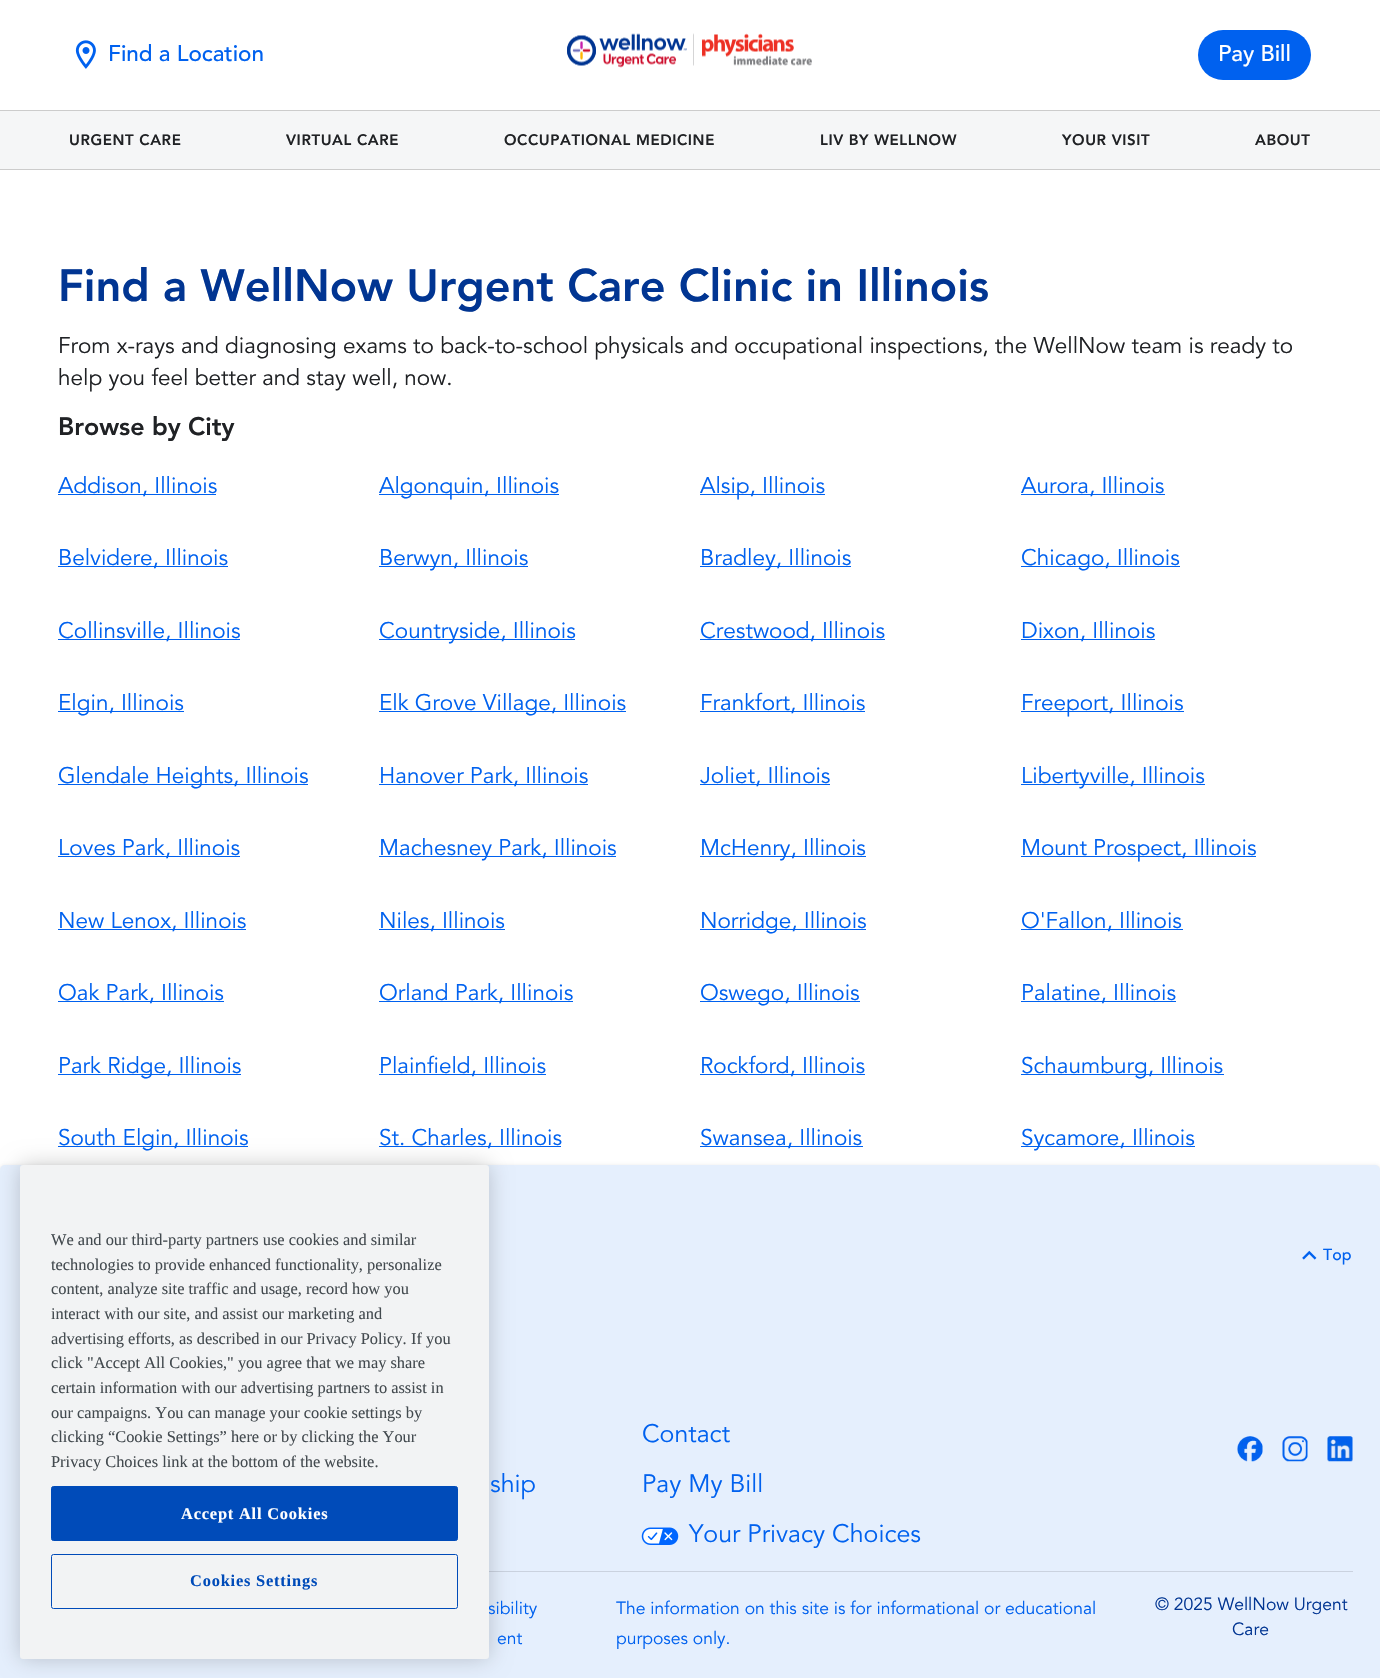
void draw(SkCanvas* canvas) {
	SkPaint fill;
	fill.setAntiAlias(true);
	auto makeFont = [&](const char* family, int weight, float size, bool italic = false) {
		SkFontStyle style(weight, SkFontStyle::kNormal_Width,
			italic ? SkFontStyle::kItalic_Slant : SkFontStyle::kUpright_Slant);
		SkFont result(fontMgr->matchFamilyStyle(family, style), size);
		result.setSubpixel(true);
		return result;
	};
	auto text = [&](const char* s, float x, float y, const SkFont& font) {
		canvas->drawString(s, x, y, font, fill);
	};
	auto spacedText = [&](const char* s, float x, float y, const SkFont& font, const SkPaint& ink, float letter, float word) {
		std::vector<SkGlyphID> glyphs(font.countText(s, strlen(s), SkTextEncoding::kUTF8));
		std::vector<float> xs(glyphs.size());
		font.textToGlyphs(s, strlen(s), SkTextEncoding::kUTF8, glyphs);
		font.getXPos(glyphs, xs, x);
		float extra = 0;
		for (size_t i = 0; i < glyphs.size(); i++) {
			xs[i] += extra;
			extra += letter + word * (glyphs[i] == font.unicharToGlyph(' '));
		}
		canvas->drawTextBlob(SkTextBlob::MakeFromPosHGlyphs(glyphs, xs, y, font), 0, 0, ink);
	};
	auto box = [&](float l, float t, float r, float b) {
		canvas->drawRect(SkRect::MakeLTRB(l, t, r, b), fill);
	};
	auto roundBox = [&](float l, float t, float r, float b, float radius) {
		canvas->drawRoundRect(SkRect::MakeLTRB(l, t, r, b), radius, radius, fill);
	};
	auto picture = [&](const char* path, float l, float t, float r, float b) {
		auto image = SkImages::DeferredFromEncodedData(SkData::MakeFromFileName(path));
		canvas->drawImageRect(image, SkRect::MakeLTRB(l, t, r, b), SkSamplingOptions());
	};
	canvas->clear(0xFFFFFFFF);
	picture("image0.png", 75, 40, 96, 69);
	picture("image1.png", 567, 33, 812, 68);
	fill.setColor(0xFF0061EF);
	roundBox(1198, 30, 1311, 80, 25);
	fill.setColor(0xFFF5F6F7);
	box(0, 111, 1380, 169);
	fill.setColor(0xFFCCCCCC);
	box(0, 110, 1380, 111);
	box(0, 169, 1380, 170);
	fill.setColor(0xFF0061EF);
	box(58, 494, 216, 495);
	box(379, 494, 559, 495);
	box(700, 494, 825, 495);
	box(1021, 494, 1165, 495);
	box(58, 566, 228, 567);
	box(379, 566, 528, 567);
	box(700, 566, 851, 567);
	box(1021, 566, 1180, 567);
	box(58, 639, 240, 640);
	box(379, 639, 575, 640);
	box(700, 639, 885, 640);
	box(1021, 639, 1155, 640);
	box(58, 711, 184, 712);
	box(379, 711, 626, 712);
	box(700, 711, 865, 712);
	box(1021, 711, 1184, 712);
	box(58, 784, 308, 785);
	box(379, 784, 588, 785);
	box(700, 784, 830, 785);
	box(1021, 784, 1205, 785);
	box(58, 856, 240, 857);
	box(379, 856, 616, 857);
	box(700, 856, 866, 857);
	box(1021, 856, 1256, 857);
	box(58, 929, 246, 930);
	box(379, 929, 505, 930);
	box(700, 929, 866, 930);
	box(1021, 929, 1183, 930);
	box(58, 1001, 224, 1002);
	box(379, 1001, 573, 1002);
	box(700, 1001, 860, 1002);
	box(1021, 1001, 1176, 1002);
	box(58, 1074, 241, 1075);
	box(379, 1074, 546, 1075);
	box(700, 1074, 865, 1075);
	box(1021, 1074, 1224, 1075);
	box(58, 1146, 248, 1147);
	box(379, 1146, 561, 1147);
	box(700, 1146, 863, 1147);
	box(1021, 1146, 1195, 1147);
	fill.setColor(0x1F000000);
	fill.setMaskFilter(SkMaskFilter::MakeBlur(kNormal_SkBlurStyle, 2));
	canvas->drawRoundRect(SkRect::MakeLTRB(0, 1166, 1380, 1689), 5, 5, fill);
	fill.setMaskFilter(nullptr);
	fill.setColor(0xFFE5EFFD);
	roundBox(0, 1165, 1380, 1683, 5);
	picture("image2.png", 1302, 1250, 1317, 1260);
	picture("image3.png", 641, 1527, 679, 1545);
	picture("image4.png", 1237, 1436, 1263, 1462);
	picture("image5.png", 1282, 1436, 1308, 1462);
	picture("image6.png", 1327, 1436, 1353, 1462);
	fill.setColor(0xFFCAD2DF);
	box(489, 1571, 1353, 1572);
	fill.setColor(0x33000000);
	fill.setMaskFilter(SkMaskFilter::MakeBlur(kNormal_SkBlurStyle, 11));
	canvas->drawRoundRect(SkRect::MakeLTRB(20, 1165, 489, 1659), 3, 3, fill);
	fill.setMaskFilter(nullptr);
	auto font1 = makeFont("Avenir", 500, 22.5f);
	fill.setColor(0xFF0061EF);
	text("Find a Location", 108, 61, font1);
	fill.setColor(0xFFFFFFFF);
	text("Pay Bill", 1218, 61, font1);
	auto font2 = makeFont("Avenir", 900, 15);
	fill.setColor(0xFF202225);
	spacedText("URGENT CARE", 69, 145, font2, fill, 0.6f, 0);
	spacedText("VIRTUAL CARE", 286, 145, font2, fill, 0.6f, 0);
	spacedText("OCCUPATIONAL MEDICINE", 504, 145, font2, fill, 0.6f, 0);
	spacedText("LIV BY WELLNOW", 820, 145, font2, fill, 0.6f, 0);
	spacedText("YOUR VISIT", 1062, 145, font2, fill, 0.6f, 0);
	spacedText("ABOUT", 1255, 145, font2, fill, 0.6f, 0);
	auto font3 = makeFont("Avenir", 900, 45);
	fill.setColor(0xFF013592);
	text("Find a WellNow Urgent Care Clinic in Illinois", 58, 301, font3);
	auto font4 = makeFont("Avenir", 400, 22.5f);
	fill.setColor(0xFF202225);
	text("From x-rays and diagnosing exams to back-to-school physicals and occupational inspections, the WellNow team is ready to", 58, 353, font4);
	text("help you feel better and stay well, now.", 58, 385, font4);
	auto font5 = makeFont("Avenir", 900, 25);
	text("Browse by City", 58, 435, font5);
	fill.setColor(0xFF0061EF);
	text("Addison, Illinois", 58, 493, font4);
	text("Algonquin, Illinois", 379, 493, font4);
	text("Alsip, Illinois", 700, 493, font4);
	text("Aurora, Illinois", 1021, 493, font4);
	text("Belvidere, Illinois", 58, 565, font4);
	text("Berwyn, Illinois", 379, 565, font4);
	text("Bradley, Illinois", 700, 565, font4);
	text("Chicago, Illinois", 1021, 565, font4);
	text("Collinsville, Illinois", 58, 638, font4);
	text("Countryside, Illinois", 379, 638, font4);
	text("Crestwood, Illinois", 700, 638, font4);
	text("Dixon, Illinois", 1021, 638, font4);
	text("Elgin, Illinois", 58, 710, font4);
	text("Elk Grove Village, Illinois", 379, 710, font4);
	text("Frankfort, Illinois", 700, 710, font4);
	text("Freeport, Illinois", 1021, 710, font4);
	text("Glendale Heights, Illinois", 58, 783, font4);
	text("Hanover Park, Illinois", 379, 783, font4);
	text("Joliet, Illinois", 700, 783, font4);
	text("Libertyville, Illinois", 1021, 783, font4);
	text("Loves Park, Illinois", 58, 855, font4);
	text("Machesney Park, Illinois", 379, 855, font4);
	text("McHenry, Illinois", 700, 855, font4);
	text("Mount Prospect, Illinois", 1021, 855, font4);
	text("New Lenox, Illinois", 58, 928, font4);
	text("Niles, Illinois", 379, 928, font4);
	text("Norridge, Illinois", 700, 928, font4);
	text("O'Fallon, Illinois", 1021, 928, font4);
	text("Oak Park, Illinois", 58, 1000, font4);
	text("Orland Park, Illinois", 379, 1000, font4);
	text("Oswego, Illinois", 700, 1000, font4);
	text("Palatine, Illinois", 1021, 1000, font4);
	text("Park Ridge, Illinois", 58, 1073, font4);
	text("Plainfield, Illinois", 379, 1073, font4);
	text("Rockford, Illinois", 700, 1073, font4);
	text("Schaumburg, Illinois", 1021, 1073, font4);
	text("South Elgin, Illinois", 58, 1145, font4);
	text("St. Charles, Illinois", 379, 1145, font4);
	text("Swansea, Illinois", 700, 1145, font4);
	text("Sycamore, Illinois", 1021, 1145, font4);
	auto font6 = makeFont("Avenir", 500, 16);
	text("Top", 1323, 1260, font6);
	auto font7 = makeFont("Avenir", 400, 25);
	text("Contact", 642, 1442, font7);
	text("Pay My Bill", 642, 1492, font7);
	text("Your Privacy Choices", 689, 1542, font7);
	text("ship", 490, 1492, font7);
	auto font8 = makeFont("Avenir", 400, 17.5f);
	text("sibility", 488, 1614, font8);
	text("ent", 497, 1644, font8);
	text("The information on this site is for informational or educational", 616, 1614, font8);
	text("purposes only.", 616, 1644, font8);
	fill.setColor(0xFF013592);
	text("© 2025 WellNow Urgent", 1155, 1610, font8);
	text("Care", 1232, 1635, font8);
	fill.setColor(0xFFF2F3F4);
	roundBox(20, 1165, 489, 1659, 3);
	auto font9 = makeFont("Liberation Serif", 400, 16.4f);
	fill.setColor(0xFF434A4F);
	text("We and our third-party partners use cookies and similar", 51, 1245, font9);
	text("technologies to provide enhanced functionality, personalize", 51, 1270, font9);
	text("content, analyze site traffic and usage, record how you", 51, 1294, font9);
	text("interact with our site, and assist our marketing and", 51, 1319, font9);
	text("advertising efforts, as described in our Privacy Policy.", 51, 1344, font9);
	text("If you", 411, 1344, font9);
	text("click \"Accept All Cookies,\" you agree that we may share", 51, 1368, font9);
	text("certain information with our advertising partners to assist in", 51, 1393, font9);
	text("our campaigns. You can manage your cookie settings by", 51, 1418, font9);
	text("clicking “Cookie Settings” here or by clicking the Your", 51, 1442, font9);
	text("Privacy Choices link at the bottom of the website.", 51, 1467, font9);
	fill.setColor(0xFF004BB9);
	canvas->drawRoundRect(SkRect::MakeLTRB(51.5f, 1486.5f, 457.5f, 1540.5f), 2, 2, fill);
	fill.setStyle(SkPaint::kStroke_Style);
	fill.setStrokeWidth(1);
	canvas->drawRoundRect(SkRect::MakeLTRB(51.5f, 1486.5f, 457.5f, 1540.5f), 2, 2, fill);
	auto font10 = makeFont("Liberation Serif", 700, 16.4f);
	fill.setStyle(SkPaint::kFill_Style);
	fill.setColor(0xFFFFFFFF);
	spacedText("Accept All Cookies", 181, 1519, font10, fill, 0.8f, 0);
	fill.setStyle(SkPaint::kStroke_Style);
	fill.setColor(0xFF004BB9);
	canvas->drawRoundRect(SkRect::MakeLTRB(51.5f, 1554.5f, 457.5f, 1608.5f), 2, 2, fill);
	fill.setStyle(SkPaint::kFill_Style);
	spacedText("Cookies Settings", 190, 1586, font10, fill, 0.8f, 0);
}
